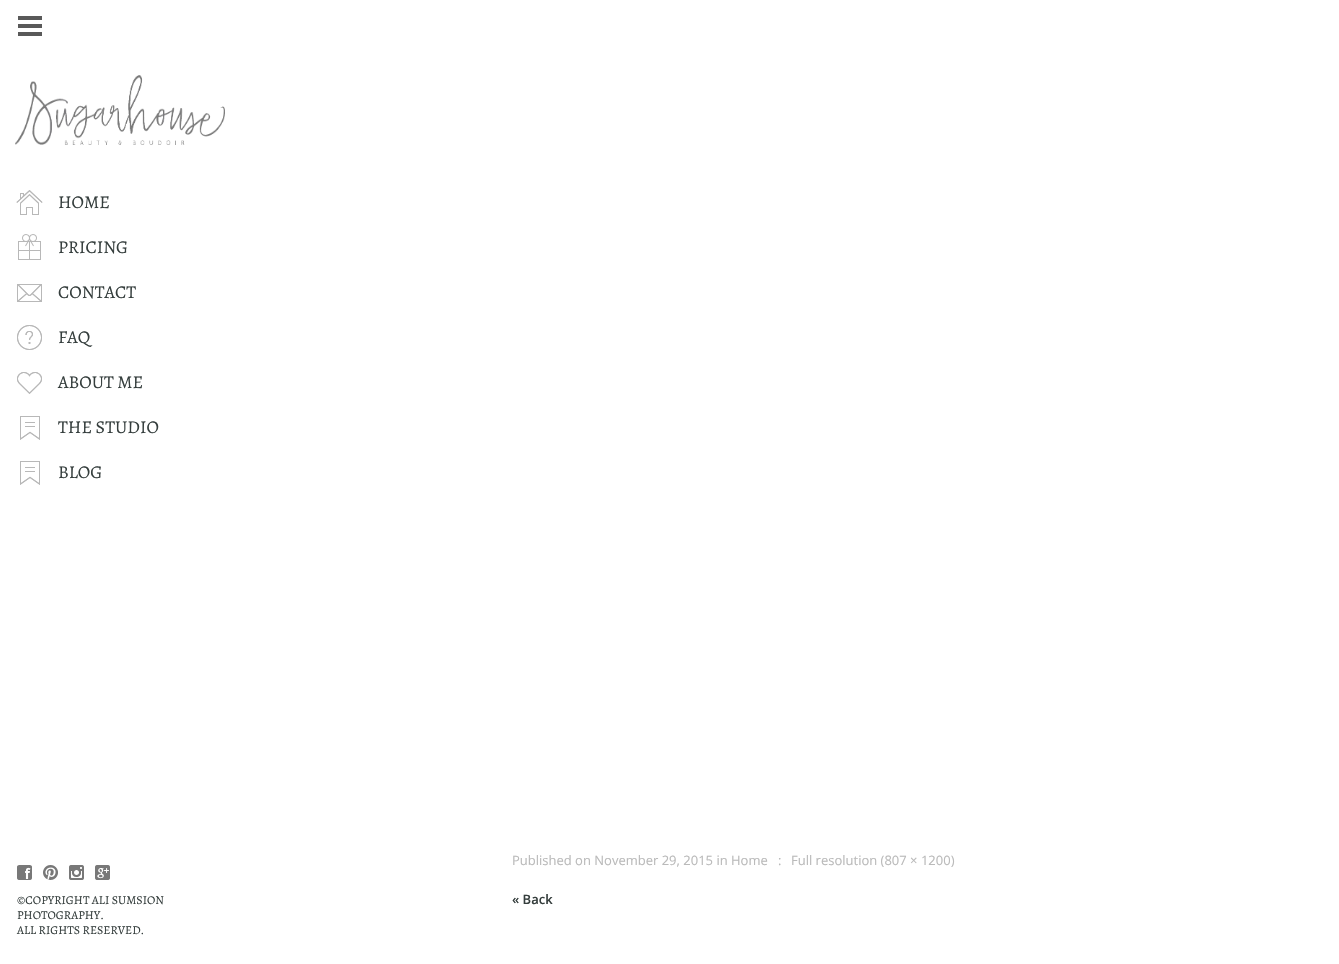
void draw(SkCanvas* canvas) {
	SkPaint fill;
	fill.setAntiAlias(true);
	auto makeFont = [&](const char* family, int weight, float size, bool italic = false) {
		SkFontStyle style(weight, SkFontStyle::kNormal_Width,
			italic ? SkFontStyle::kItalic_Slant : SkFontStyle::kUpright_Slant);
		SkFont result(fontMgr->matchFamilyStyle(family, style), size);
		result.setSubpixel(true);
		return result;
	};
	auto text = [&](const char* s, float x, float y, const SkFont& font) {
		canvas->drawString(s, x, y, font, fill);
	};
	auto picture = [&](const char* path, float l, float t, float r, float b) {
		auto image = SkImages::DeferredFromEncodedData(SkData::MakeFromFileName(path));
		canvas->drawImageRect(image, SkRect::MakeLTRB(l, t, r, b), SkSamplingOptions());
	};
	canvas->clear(0xFFFFFFFF);
	picture("image0.png", 18, 16, 42, 36);
	picture("image1.png", 15, 75, 225, 145);
	picture("image2.png", 16, 190, 43, 215);
	picture("image3.png", 18, 234, 41, 260);
	picture("image4.png", 17, 284, 42, 302);
	picture("image5.png", 17, 325, 42, 350);
	picture("image6.png", 17, 372, 42, 394);
	picture("image7.png", 20, 416, 40, 440);
	picture("image7.png", 20, 461, 40, 485);
	picture("image8.png", 17, 865, 32, 880);
	picture("image9.png", 43, 865, 58, 880);
	picture("image10.png", 69, 865, 84, 880);
	picture("image11.png", 95, 865, 110, 880);
	auto font1 = makeFont("Alegreya SC", 400, 18);
	fill.setColor(0xFF353E3D);
	text("HOME", 58, 208, font1);
	text("PRICING", 58, 253, font1);
	text("CONTACT", 58, 298, font1);
	text("FAQ", 58, 343, font1);
	text("ABOUT ME", 58, 388, font1);
	text("THE STUDIO", 58, 433, font1);
	text("BLOG", 58, 478, font1);
	auto font2 = makeFont("Alegreya SC", 400, 12);
	text("©COPYRIGHT ALI SUMSION", 17, 904, font2);
	text("PHOTOGRAPHY.", 17, 919, font2);
	text("ALL RIGHTS RESERVED.", 17, 934, font2);
	auto font3 = makeFont("Open Sans", 400, 13);
	fill.setColor(0xFFBABABA);
	text("Published on November 29, 2015 in Home", 512, 865, font3);
	text(":", 778, 865, font3);
	text("Full resolution (807 × 1200)", 791, 865, font3);
	auto font4 = makeFont("Open Sans", 600, 13);
	fill.setColor(0xFF353E3D);
	text("« Back", 512, 904, font4);
}
